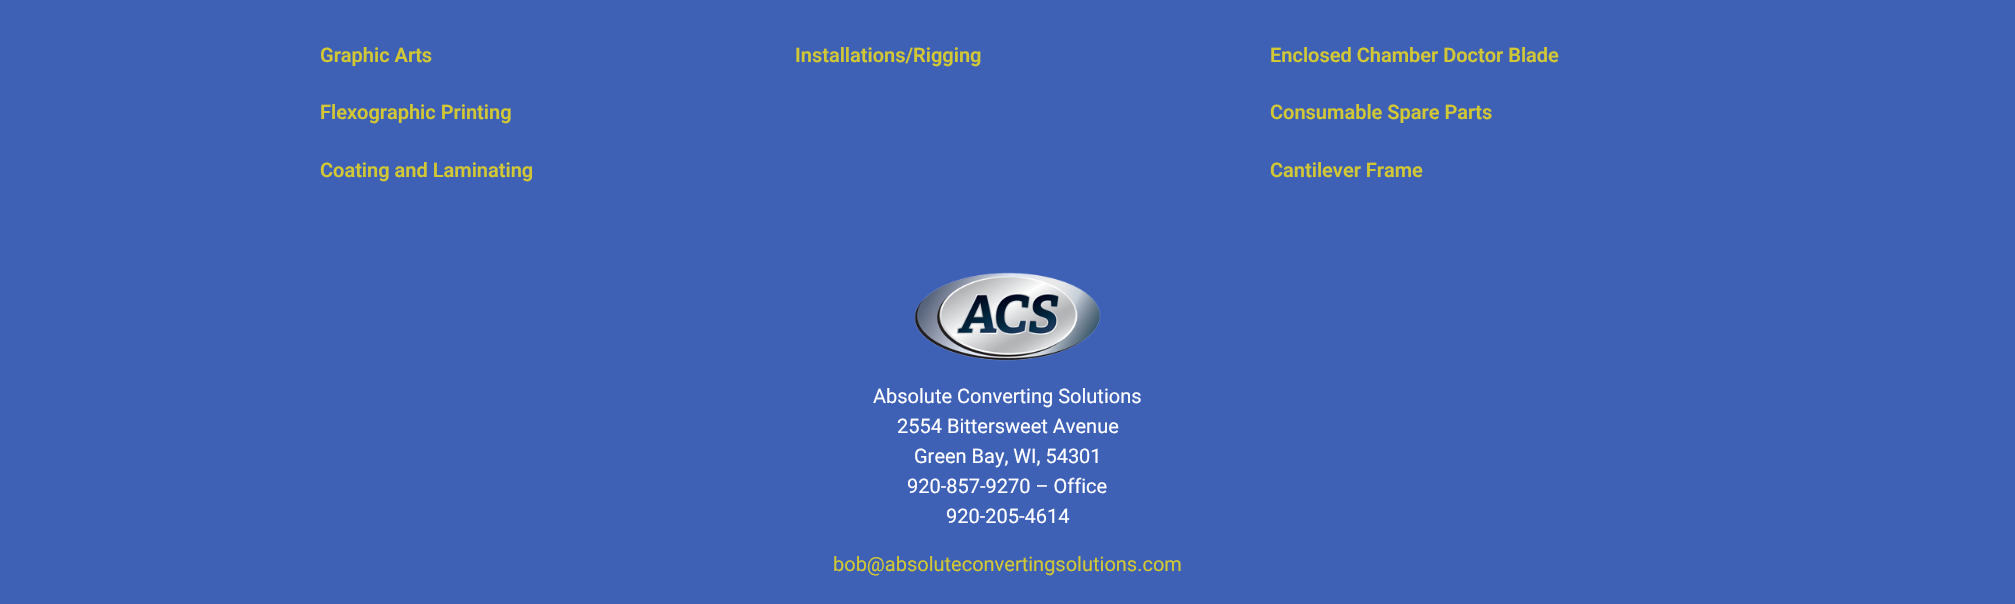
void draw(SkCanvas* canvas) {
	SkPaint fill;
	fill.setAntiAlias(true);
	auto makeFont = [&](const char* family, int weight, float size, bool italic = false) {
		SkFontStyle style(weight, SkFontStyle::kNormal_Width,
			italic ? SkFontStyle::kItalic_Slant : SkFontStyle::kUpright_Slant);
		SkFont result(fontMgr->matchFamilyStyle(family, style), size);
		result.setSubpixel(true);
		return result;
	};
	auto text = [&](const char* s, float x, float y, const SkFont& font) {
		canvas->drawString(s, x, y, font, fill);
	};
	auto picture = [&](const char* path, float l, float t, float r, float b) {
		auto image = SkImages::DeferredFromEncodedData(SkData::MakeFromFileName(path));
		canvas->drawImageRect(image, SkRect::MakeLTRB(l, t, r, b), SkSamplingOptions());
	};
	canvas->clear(0xFF3E61B6);
	picture("image0.png", 914, 272, 1101, 361);
	auto font1 = makeFont("Roboto", 600, 20);
	fill.setColor(0xFFD2C734);
	text("Graphic Arts", 320, 62, font1);
	text("Flexographic Printing", 320, 119, font1);
	text("Coating and Laminating", 320, 177, font1);
	text("Installations/Rigging", 795, 62, font1);
	text("Enclosed Chamber Doctor Blade", 1270, 62, font1);
	text("Consumable Spare Parts", 1270, 119, font1);
	text("Cantilever Frame", 1270, 177, font1);
	auto font2 = makeFont("Roboto", 400, 20);
	fill.setColor(0xFFFFFFFF);
	text("Absolute Converting Solutions", 873, 403, font2);
	text("2554 Bittersweet Avenue", 897, 433, font2);
	text("Green Bay, WI, 54301", 914, 463, font2);
	text("920-857-9270 – Office", 907, 493, font2);
	text("920-205-4614", 946, 523, font2);
	fill.setColor(0xFFD2C734);
	text("bob@absoluteconvertingsolutions.com", 833, 571, font2);
}
